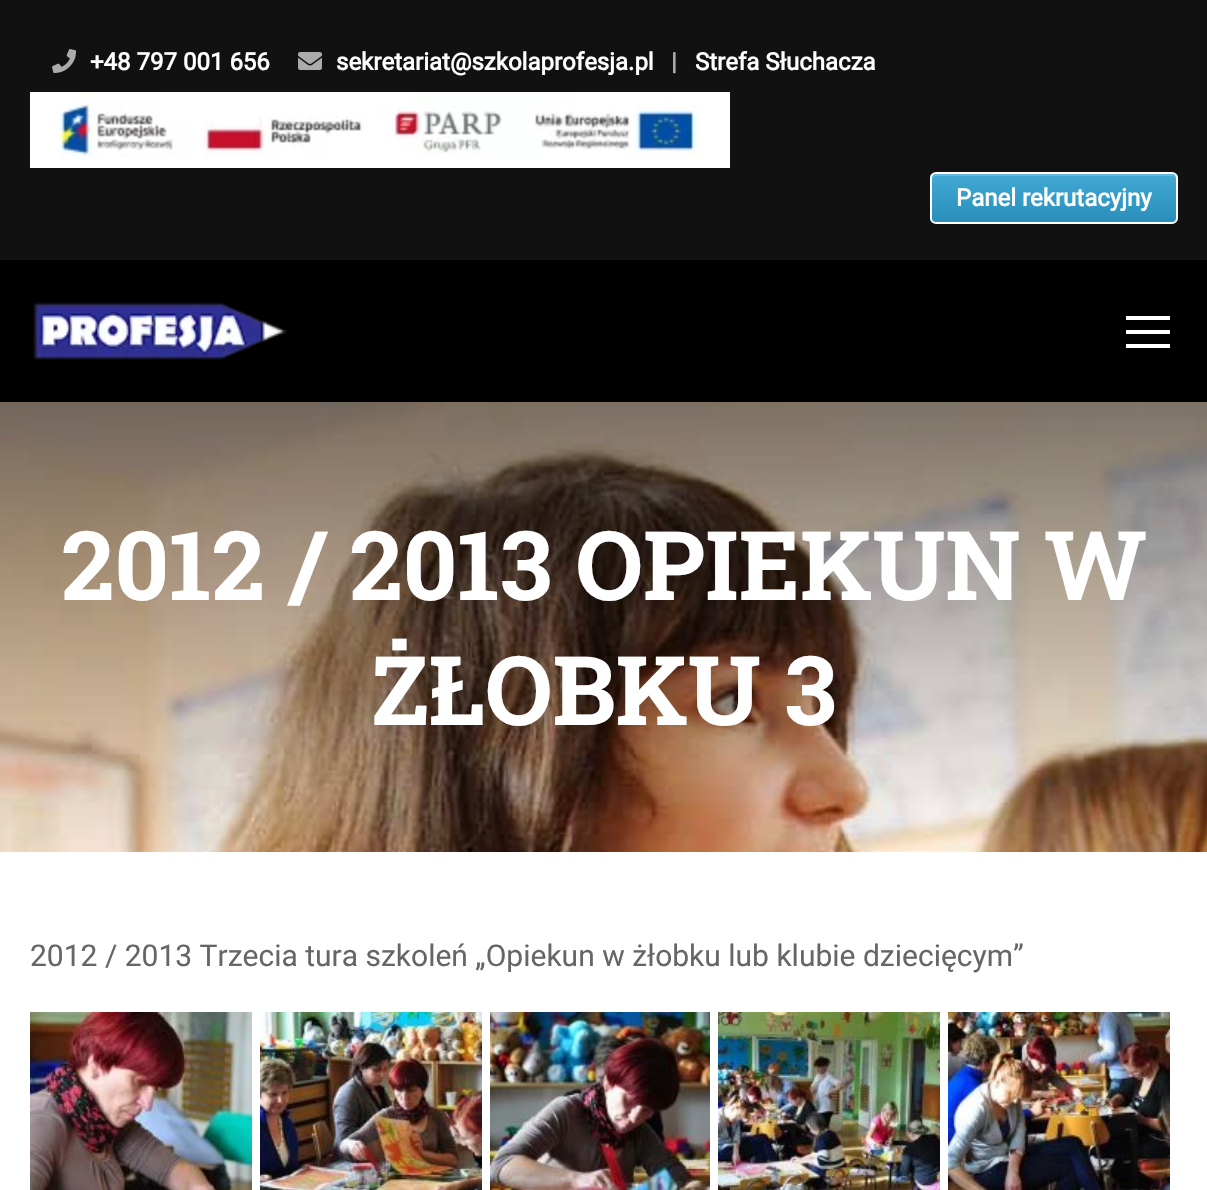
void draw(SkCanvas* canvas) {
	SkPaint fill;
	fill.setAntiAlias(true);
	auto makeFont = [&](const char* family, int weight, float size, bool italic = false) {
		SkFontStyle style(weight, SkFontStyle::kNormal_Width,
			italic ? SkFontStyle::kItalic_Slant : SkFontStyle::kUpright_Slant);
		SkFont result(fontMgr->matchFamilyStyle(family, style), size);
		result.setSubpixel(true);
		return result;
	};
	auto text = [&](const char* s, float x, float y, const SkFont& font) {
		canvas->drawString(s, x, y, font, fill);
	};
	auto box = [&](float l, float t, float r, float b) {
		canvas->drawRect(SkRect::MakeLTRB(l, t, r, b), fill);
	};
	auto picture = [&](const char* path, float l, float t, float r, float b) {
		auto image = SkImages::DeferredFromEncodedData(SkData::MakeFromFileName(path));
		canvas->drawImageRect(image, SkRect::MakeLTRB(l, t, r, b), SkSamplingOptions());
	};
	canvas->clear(0xFFFFFFFF);
	fill.setColor(0xFF000000);
	box(0, 260, 1207, 402);
	fill.setColor(0xFF111111);
	box(0, 0, 1207, 260);
	picture("image0.png", 52, 49, 77, 73);
	picture("image1.png", 298, 52, 322, 70);
	picture("image2.png", 30, 92, 730, 168);
	canvas->save();
	canvas->clipPath(SkPathBuilder().moveTo(936, 172).lineTo(1172, 172).cubicTo(1175.5f, 172, 1178, 174.5f, 1178, 178).lineTo(1178, 218).cubicTo(1178, 221.5f, 1175.5f, 224, 1172, 224).lineTo(936, 224).cubicTo(932.5f, 224, 930, 221.5f, 930, 218).lineTo(930, 178).cubicTo(930, 174.5f, 932.5f, 172, 936, 172).close().detach(), true);
	{
		const SkColor colors[] = {0xFF298FBA, 0xFF41A9D5};
		const float stops[] = {0, 1};
		const SkPoint ends[] = {{932, 222}, {932, 174}};
		fill.setShader(SkGradientShader::MakeLinear(ends, colors, stops, 2, SkTileMode::kClamp));
		fill.setAlpha(255);
	}
	box(930, 174, 1178, 222);
	canvas->restore();
	fill.setShader(nullptr);
	fill.setColor(0xFF67BADD);
	canvas->drawPath(SkPathBuilder().moveTo(936, 176).lineTo(1172, 176).cubicTo(1174, 176, 1176, 178, 1176, 180).lineTo(1176, 178).cubicTo(1176, 176, 1174, 174, 1172, 174).lineTo(936, 174).cubicTo(934, 174, 932, 176, 932, 178).lineTo(932, 180).cubicTo(932, 178, 934, 176, 936, 176).close().detach(), fill);
	fill.setStyle(SkPaint::kStroke_Style);
	fill.setStrokeWidth(2);
	fill.setColor(0xFFFFFFFF);
	canvas->drawRoundRect(SkRect::MakeLTRB(931, 173, 1177, 223), 5, 5, fill);
	picture("image3.png", 33, 302, 287, 360);
	fill.setStyle(SkPaint::kFill_Style);
	box(1126, 316, 1170, 320);
	box(1126, 330, 1170, 334);
	box(1126, 344, 1170, 348);
	picture("image4.png", 0, 402, 1207, 852);
	picture("image5.png", 30, 1012, 252, 1190);
	picture("image6.png", 260, 1012, 482, 1190);
	picture("image7.png", 490, 1012, 710, 1190);
	picture("image8.png", 718, 1012, 940, 1190);
	picture("image9.png", 948, 1012, 1170, 1190);
	auto font1 = makeFont("Roboto", 700, 24);
	text("+48 797 001 656", 90, 70, font1);
	text("sekretariat@szkolaprofesja.pl", 336, 70, font1);
	fill.setColor(0xFFABABAB);
	text("|", 671, 70, font1);
	fill.setColor(0xFFFFFFFF);
	text("Strefa Słuchacza", 695, 70, font1);
	text("Panel rekrutacyjny", 956, 206, font1);
	auto font2 = makeFont("Roboto Slab", 700, 96);
	text("2012 / 2013 OPIEKUN W", 61, 600, font2);
	text("ŻŁOBKU 3", 371, 725, font2);
	auto font3 = makeFont("Roboto", 400, 30);
	fill.setColor(0xFF666666);
	text("2012 / 2013 Trzecia tura szkoleń „Opiekun w żłobku lub klubie dziecięcym”", 30, 966, font3);
}
